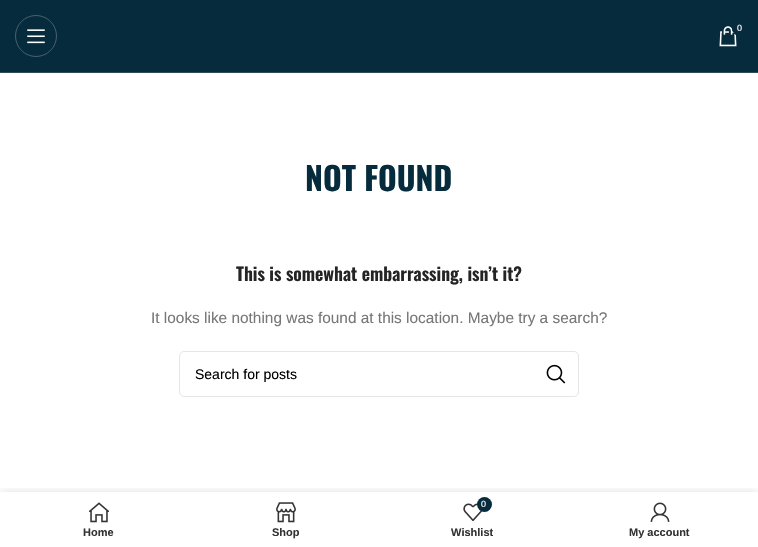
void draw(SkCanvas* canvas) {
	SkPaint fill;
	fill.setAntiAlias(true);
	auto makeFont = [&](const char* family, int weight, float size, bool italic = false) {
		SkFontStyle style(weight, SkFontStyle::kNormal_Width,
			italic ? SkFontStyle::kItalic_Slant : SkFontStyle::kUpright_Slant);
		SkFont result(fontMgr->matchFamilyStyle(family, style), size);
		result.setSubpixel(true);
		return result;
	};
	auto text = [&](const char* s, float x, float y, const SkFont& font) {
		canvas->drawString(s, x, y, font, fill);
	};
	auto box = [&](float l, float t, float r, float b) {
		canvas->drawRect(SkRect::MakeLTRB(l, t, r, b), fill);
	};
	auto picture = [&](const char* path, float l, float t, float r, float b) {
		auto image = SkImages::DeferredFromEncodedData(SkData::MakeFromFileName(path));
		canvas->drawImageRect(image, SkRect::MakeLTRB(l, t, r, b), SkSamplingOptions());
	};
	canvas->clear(0xFFFFFFFF);
	fill.setColor(0xFF062B3C);
	box(0, 0, 758, 72);
	fill.setColor(0xFF2B4B59);
	box(0, 72, 758, 73);
	fill.setStyle(SkPaint::kStroke_Style);
	fill.setStrokeWidth(1);
	fill.setColor(0xFF44606D);
	canvas->drawCircle(36, 36, 20.5f, fill);
	picture("image0.png", 27, 29, 45, 44);
	picture("image1.png", 719, 26, 737, 47);
	fill.setStyle(SkPaint::kFill_Style);
	fill.setColor(0xFF062B3C);
	canvas->drawCircle(739.5f, 28.5f, 7.5f, fill);
	fill.setStyle(SkPaint::kStroke_Style);
	fill.setColor(0xFFE6E6E6);
	canvas->drawRoundRect(SkRect::MakeLTRB(179.5f, 351.5f, 578.5f, 396.5f), 4.5f, 4.5f, fill);
	picture("image2.png", 546, 364, 566, 384);
	canvas->save();
	canvas->clipRect(SkRect::MakeLTRB(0, 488, 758, 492));
	fill.setStyle(SkPaint::kFill_Style);
	fill.setColor(0x1F000000);
	fill.setMaskFilter(SkMaskFilter::MakeBlur(kNormal_SkBlurStyle, 4.5f));
	canvas->drawRect(SkRect::MakeLTRB(0, 492, 758, 547), fill);
	fill.setMaskFilter(nullptr);
	canvas->restore();
	picture("image3.png", 89, 502, 109, 523);
	picture("image4.png", 276, 502, 296, 523);
	picture("image5.png", 463, 503, 483, 521);
	fill.setColor(0xFF062B3C);
	canvas->drawCircle(484.5f, 504.5f, 7.5f, fill);
	picture("image6.png", 650, 502, 670, 522);
	auto font1 = makeFont("Liberation Sans", 400, 9);
	fill.setColor(0xFFFFFFFF);
	text("0", 737, 31, font1);
	auto font2 = makeFont("Oswald", 700, 32);
	fill.setColor(0xFF062B3C);
	text("NOT FOUND", 305, 191, font2);
	auto font3 = makeFont("Oswald", 600, 18);
	fill.setColor(0xFF242424);
	text("This is somewhat embarrassing, isn’t it?", 236, 281, font3);
	auto font4 = makeFont("Liberation Sans", 400, 15.4f);
	fill.setColor(0xFF777777);
	text("It looks like nothing was found at this location. Maybe try a search?", 151, 323, font4);
	auto font5 = makeFont("Liberation Sans", 400, 14);
	fill.setColor(0xFF000000);
	text("Search for posts", 195, 379, font5);
	auto font6 = makeFont("Liberation Sans", 700, 11);
	fill.setColor(0xFF333333);
	text("Home", 83, 536, font6);
	text("Shop", 272, 536, font6);
	fill.setColor(0xFFFFFFFF);
	text("0", 481, 507, font1);
	fill.setColor(0xFF333333);
	text("Wishlist", 451, 536, font6);
	text("My account", 629, 536, font6);
}
